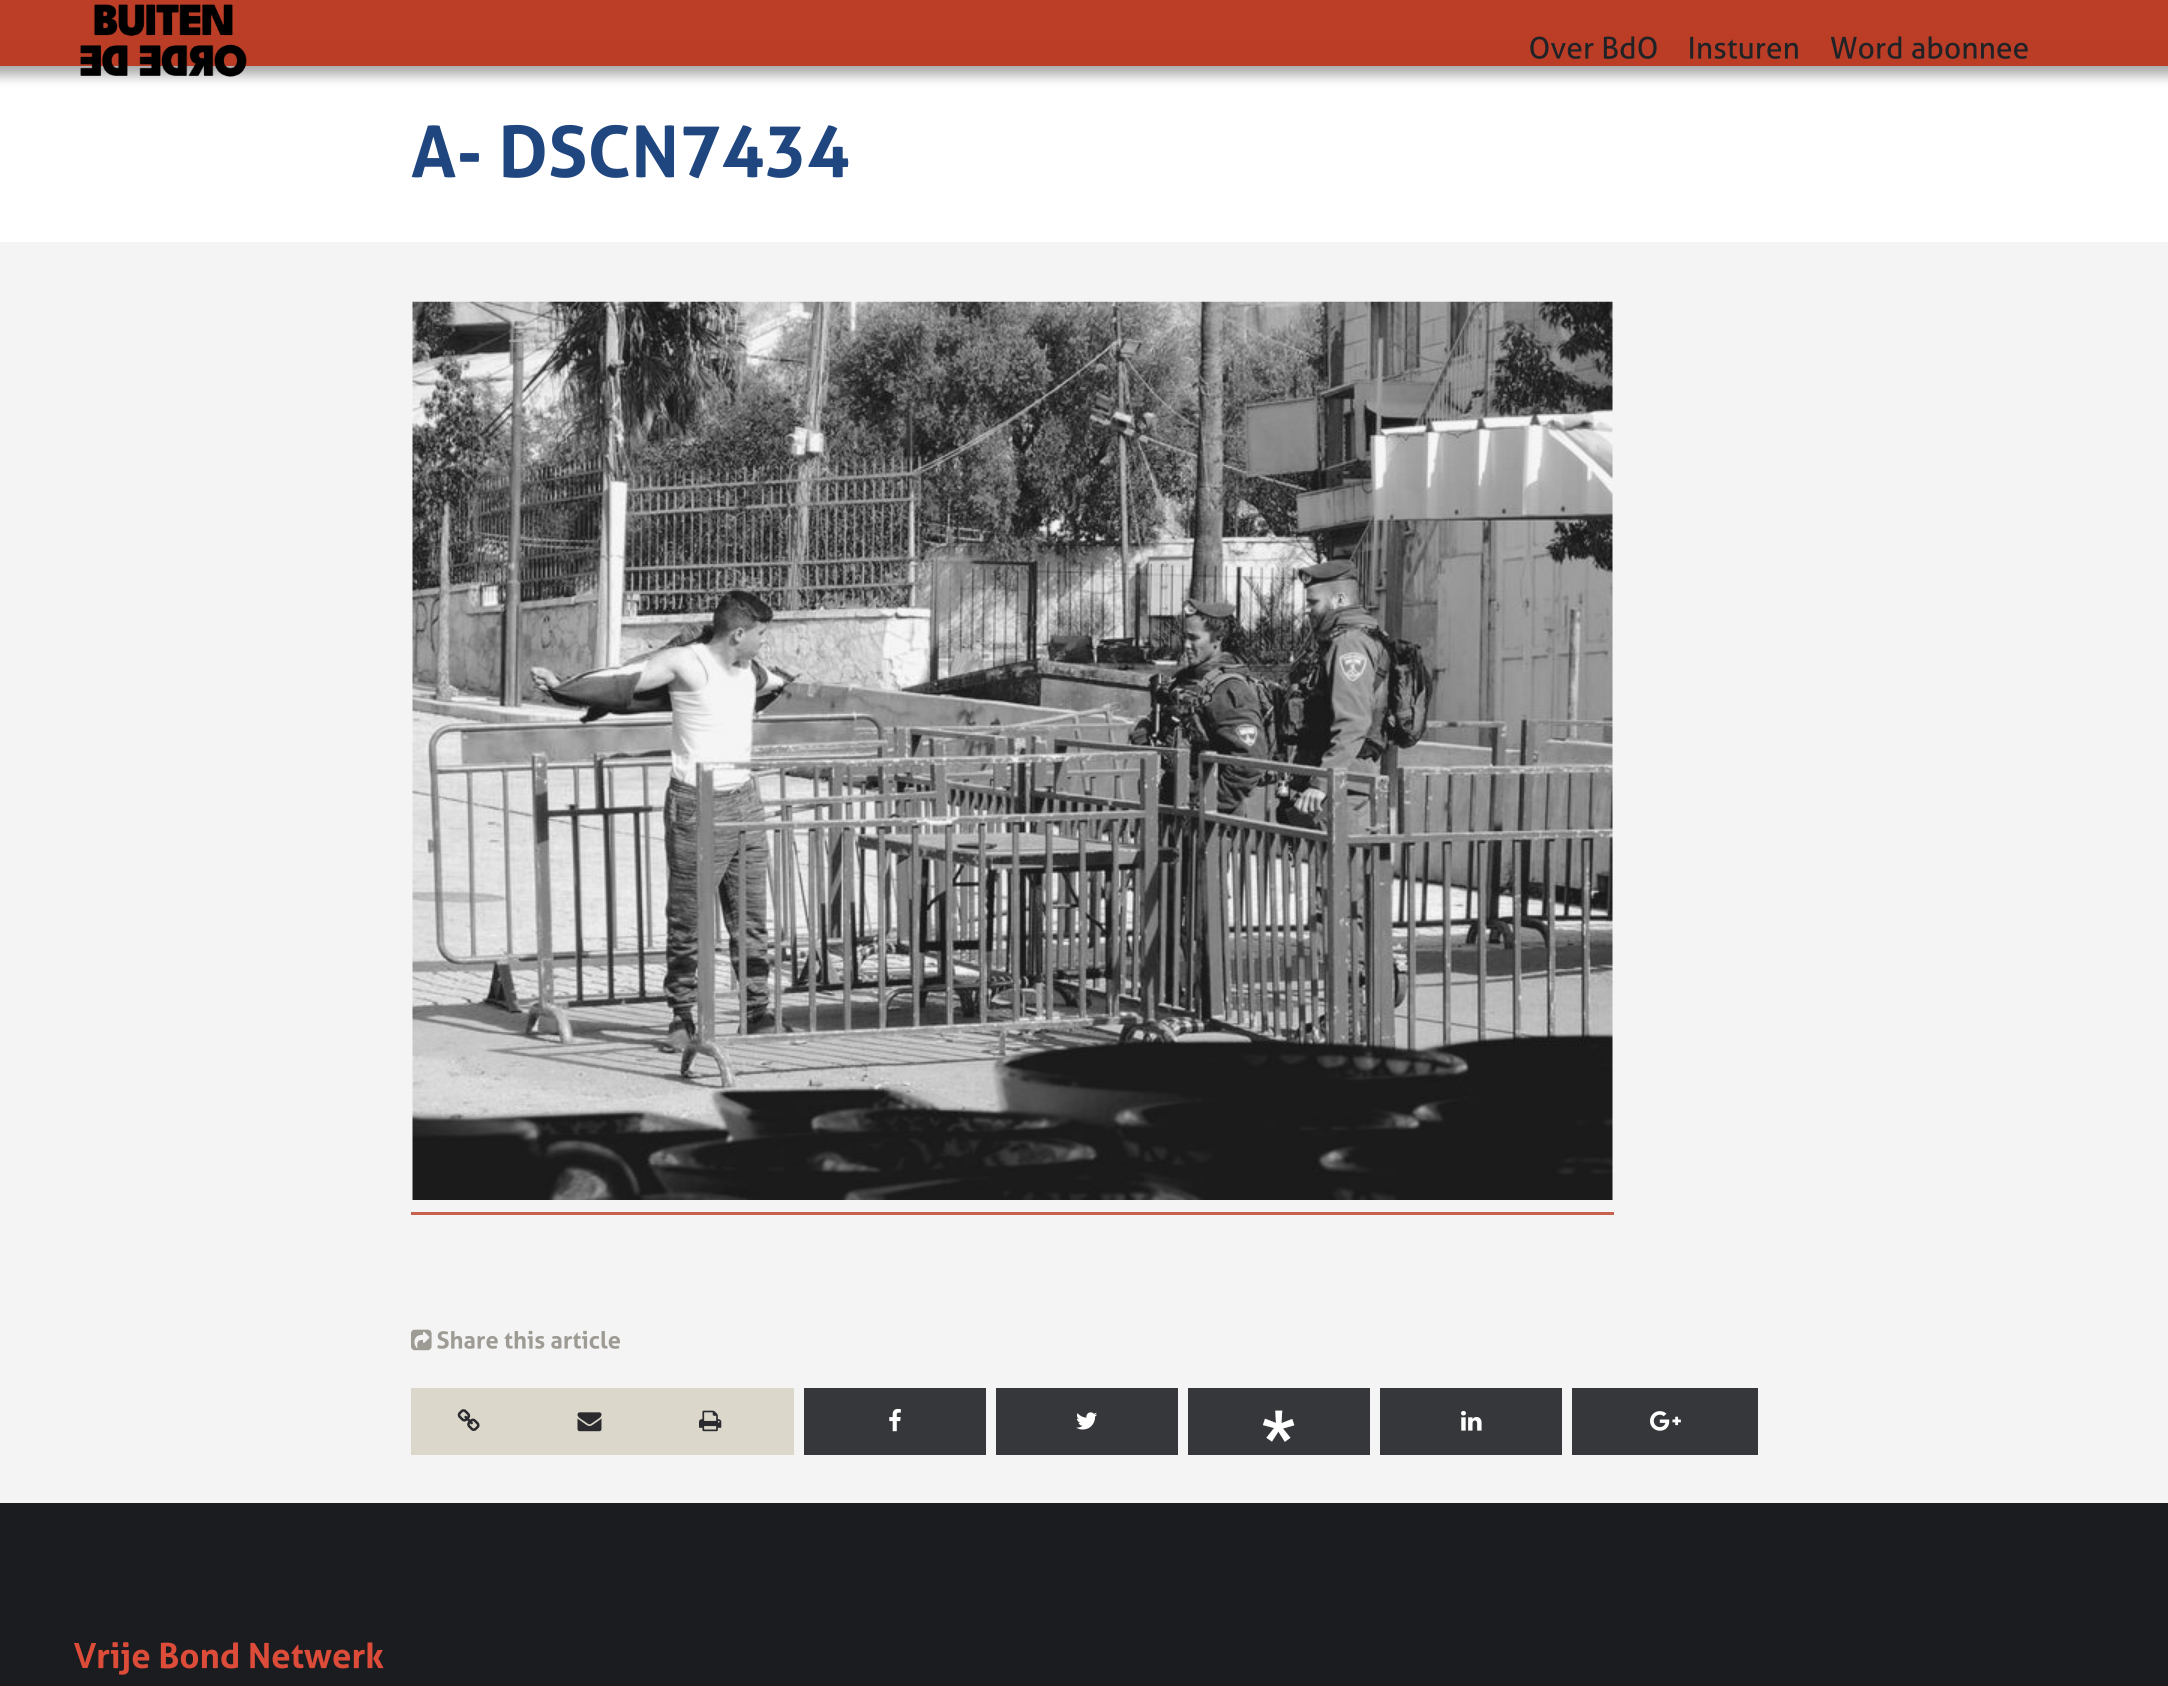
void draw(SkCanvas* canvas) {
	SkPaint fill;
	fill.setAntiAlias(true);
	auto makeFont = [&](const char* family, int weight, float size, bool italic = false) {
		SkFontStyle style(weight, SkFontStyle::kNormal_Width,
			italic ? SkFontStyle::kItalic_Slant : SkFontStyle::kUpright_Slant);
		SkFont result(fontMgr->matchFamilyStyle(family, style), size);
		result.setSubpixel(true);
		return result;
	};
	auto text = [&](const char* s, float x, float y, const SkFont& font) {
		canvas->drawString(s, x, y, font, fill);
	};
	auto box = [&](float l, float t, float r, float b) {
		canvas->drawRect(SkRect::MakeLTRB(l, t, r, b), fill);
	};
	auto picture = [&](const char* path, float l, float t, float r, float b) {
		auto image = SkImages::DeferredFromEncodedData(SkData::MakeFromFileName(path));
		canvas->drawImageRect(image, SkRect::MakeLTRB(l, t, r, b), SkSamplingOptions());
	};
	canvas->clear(0xFFFFFFFF);
	fill.setColor(0x804F5053);
	fill.setMaskFilter(SkMaskFilter::MakeBlur(kNormal_SkBlurStyle, 6));
	canvas->drawRect(SkRect::MakeLTRB(-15, -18, 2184, 75), fill);
	fill.setMaskFilter(nullptr);
	{
		const SkColor colors[] = {0xFFBD3E27, 0xFFBB3D26};
		const float stops[] = {0, 1};
		const SkPoint ends[] = {{1085, 0}, {1085, 66}};
		fill.setShader(SkGradientShader::MakeLinear(ends, colors, stops, 2, SkTileMode::kClamp));
		fill.setAlpha(255);
	}
	box(0, 0, 2168, 66);
	picture("image0.png", 80, 4, 247, 77);
	picture("image1.png", 1530, 36, 1657, 59);
	picture("image2.png", 1690, 36, 1798, 59);
	picture("image3.png", 1830, 36, 2028, 59);
	picture("image4.png", 411, 124, 849, 179);
	fill.setShader(nullptr);
	fill.setColor(0xFFF4F4F4);
	box(0, 242, 2168, 1503);
	picture("image5.png", 412, 301, 1613, 1200);
	fill.setColor(0xFFC6614E);
	box(411, 1212, 1614, 1215);
	picture("image6.png", 411, 1329, 432, 1351);
	picture("image7.png", 437, 1330, 620, 1349);
	fill.setColor(0xFFDBD8CB);
	box(411, 1388, 794, 1455);
	picture("image8.png", 457, 1409, 480, 1431);
	picture("image9.png", 577, 1412, 602, 1432);
	picture("image10.png", 699, 1410, 722, 1432);
	fill.setColor(0xFF36373B);
	box(804, 1388, 986, 1455);
	picture("image11.png", 889, 1408, 901, 1432);
	box(996, 1388, 1178, 1455);
	picture("image12.png", 1076, 1412, 1097, 1430);
	box(1188, 1388, 1370, 1455);
	box(1380, 1388, 1562, 1455);
	picture("image13.png", 1461, 1410, 1482, 1431);
	box(1572, 1388, 1758, 1455);
	picture("image14.png", 1650, 1411, 1681, 1431);
	fill.setColor(0xFF1B1C1F);
	box(0, 1503, 2168, 1686);
	picture("image15.png", 98, 1642, 384, 1675);
	auto font1 = makeFont("Roboto", 700, 72);
	fill.setColor(0xFFFFFFFF);
	text("*", 1262, 1462, font1);
	auto font2 = makeFont("Noto Sans", 600, 35);
	fill.setColor(0xFFDD4B39);
	text("V", 74, 1668, font2);
}
